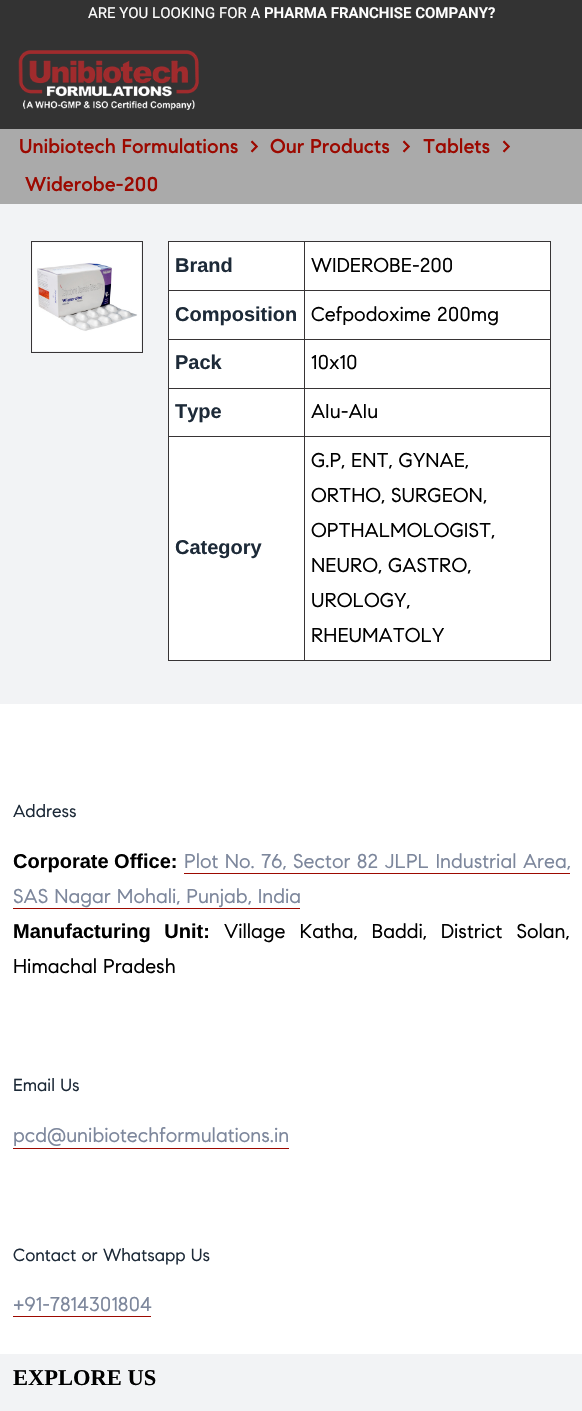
void draw(SkCanvas* canvas) {
	SkPaint fill;
	fill.setAntiAlias(true);
	auto makeFont = [&](const char* family, int weight, float size, bool italic = false) {
		SkFontStyle style(weight, SkFontStyle::kNormal_Width,
			italic ? SkFontStyle::kItalic_Slant : SkFontStyle::kUpright_Slant);
		SkFont result(fontMgr->matchFamilyStyle(family, style), size);
		result.setSubpixel(true);
		return result;
	};
	auto text = [&](const char* s, float x, float y, const SkFont& font) {
		canvas->drawString(s, x, y, font, fill);
	};
	auto spacedText = [&](const char* s, float x, float y, const SkFont& font, const SkPaint& ink, float letter, float word) {
		std::vector<SkGlyphID> glyphs(font.countText(s, strlen(s), SkTextEncoding::kUTF8));
		std::vector<float> xs(glyphs.size());
		font.textToGlyphs(s, strlen(s), SkTextEncoding::kUTF8, glyphs);
		font.getXPos(glyphs, xs, x);
		float extra = 0;
		for (size_t i = 0; i < glyphs.size(); i++) {
			xs[i] += extra;
			extra += letter + word * (glyphs[i] == font.unicharToGlyph(' '));
		}
		canvas->drawTextBlob(SkTextBlob::MakeFromPosHGlyphs(glyphs, xs, y, font), 0, 0, ink);
	};
	auto box = [&](float l, float t, float r, float b) {
		canvas->drawRect(SkRect::MakeLTRB(l, t, r, b), fill);
	};
	auto picture = [&](const char* path, float l, float t, float r, float b) {
		auto image = SkImages::DeferredFromEncodedData(SkData::MakeFromFileName(path));
		canvas->drawImageRect(image, SkRect::MakeLTRB(l, t, r, b), SkSamplingOptions());
	};
	canvas->clear(0xFFF2F3F5);
	fill.setColor(0xFF333333);
	box(0, 0, 582, 129);
	picture("image0.png", 18, 50, 199, 110);
	fill.setColor(0xFFAAAAAA);
	box(0, 129, 582, 204);
	fill.setStyle(SkPaint::kStroke_Style);
	fill.setStrokeWidth(1);
	fill.setColor(0xFF373435);
	canvas->drawRect(SkRect::MakeLTRB(31.5f, 241.5f, 142.5f, 352.5f), fill);
	picture("image1.png", 32, 242, 141, 351);
	fill.setStyle(SkPaint::kFill_Style);
	fill.setColor(0xFFFFFFFF);
	box(169, 242, 550, 660);
	fill.setColor(0xFF373435);
	box(168, 241, 551, 242);
	box(550, 241, 551, 661);
	box(168, 660, 551, 661);
	box(168, 241, 169, 661);
	box(304, 290, 551, 291);
	box(304, 339, 551, 340);
	box(304, 388, 551, 389);
	box(304, 436, 551, 437);
	box(304, 436, 305, 661);
	box(168, 436, 305, 437);
	box(304, 388, 305, 438);
	box(168, 388, 305, 389);
	box(304, 339, 305, 389);
	box(168, 339, 305, 340);
	box(304, 290, 305, 340);
	box(168, 290, 305, 291);
	box(304, 241, 305, 291);
	fill.setColor(0xFFFFFFFF);
	box(0, 704, 582, 1354);
	fill.setColor(0xFF9C0900);
	box(184, 873, 570, 874);
	box(13, 908, 300, 909);
	box(13, 1148, 289, 1149);
	box(13, 1316, 151, 1317);
	auto font1 = makeFont("Roboto", 400, 15);
	fill.setColor(0xFFFFFFFF);
	text("ARE YOU LOOKING FOR A", 88, 18, font1);
	auto font2 = makeFont("Roboto", 600, 15);
	text("PHARMA FRANCHISE COMPANY?", 264, 18, font2);
	auto font3 = makeFont("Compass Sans", 500, 20);
	fill.setColor(0xFF9C0900);
	text("Unibiotech Formulations", 19, 153, font3);
	text(">", 250, 153, font3);
	text("Our Products", 270, 153, font3);
	text(">", 402, 153, font3);
	text("Tablets", 423, 153, font3);
	text(">", 502, 153, font3);
	text("Widerobe-200", 25, 191, font3);
	auto font4 = makeFont("Liberation Sans", 700, 20);
	fill.setColor(0xFF1D2A38);
	text("Brand", 175, 272, font4);
	auto font5 = makeFont("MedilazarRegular", 400, 20);
	fill.setColor(0xFF000000);
	text("WIDEROBE-200", 311, 272, font5);
	fill.setColor(0xFF1D2A38);
	text("Composition", 175, 321, font4);
	fill.setColor(0xFF000000);
	text("Cefpodoxime 200mg", 311, 321, font5);
	fill.setColor(0xFF1D2A38);
	text("Pack", 175, 369, font4);
	fill.setColor(0xFF000000);
	text("10x10", 311, 369, font5);
	fill.setColor(0xFF1D2A38);
	text("Type", 175, 418, font4);
	fill.setColor(0xFF000000);
	text("AIu-AIu", 311, 418, font5);
	fill.setColor(0xFF1D2A38);
	text("Category", 175, 554, font4);
	fill.setColor(0xFF000000);
	text("G.P, ENT, GYNAE,", 311, 467, font5);
	text("ORTHO, SURGEON,", 311, 502, font5);
	text("OPTHALMOLOGIST,", 311, 537, font5);
	text("NEURO, GASTRO,", 311, 572, font5);
	text("UROLOGY,", 311, 607, font5);
	text("RHEUMATOLY", 311, 642, font5);
	auto font6 = makeFont("MedilazarRegular", 400, 17.5f);
	fill.setColor(0xFF1D2A38);
	text("Address", 13, 817, font6);
	fill.setColor(0xFF000000);
	text("Corporate Office:", 13, 868, font4);
	fill.setColor(0xFF7D879C);
	spacedText("Plot No. 76, Sector 82 JLPL Industrial Area,", 184, 868, font5, fill, 0, 0.5f);
	text("SAS Nagar Mohali, Punjab, India", 13, 903, font5);
	fill.setColor(0xFF000000);
	spacedText("Manufacturing Unit:", 13, 938, font4, fill, 0, 8);
	spacedText("Village Katha, Baddi, District Solan,", 224, 938, font5, fill, 0, 8);
	text("Himachal Pradesh", 13, 973, font5);
	fill.setColor(0xFF1D2A38);
	text("Email Us", 13, 1091, font6);
	fill.setColor(0xFF7D879C);
	text("pcd@unibiotechformulations.in", 13, 1142, font5);
	fill.setColor(0xFF1D2A38);
	text("Contact or Whatsapp Us", 13, 1261, font6);
	fill.setColor(0xFF7D879C);
	text("+91-7814301804", 13, 1311, font5);
	auto font7 = makeFont("Liberation Serif", 700, 22.5f);
	fill.setColor(0xFF000000);
	text("EXPLORE US", 13, 1385, font7);
}
